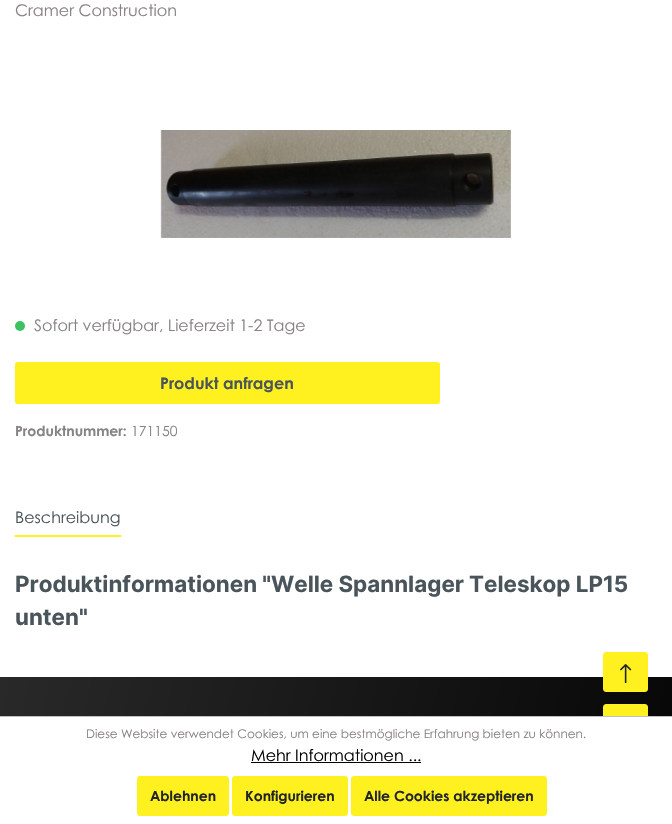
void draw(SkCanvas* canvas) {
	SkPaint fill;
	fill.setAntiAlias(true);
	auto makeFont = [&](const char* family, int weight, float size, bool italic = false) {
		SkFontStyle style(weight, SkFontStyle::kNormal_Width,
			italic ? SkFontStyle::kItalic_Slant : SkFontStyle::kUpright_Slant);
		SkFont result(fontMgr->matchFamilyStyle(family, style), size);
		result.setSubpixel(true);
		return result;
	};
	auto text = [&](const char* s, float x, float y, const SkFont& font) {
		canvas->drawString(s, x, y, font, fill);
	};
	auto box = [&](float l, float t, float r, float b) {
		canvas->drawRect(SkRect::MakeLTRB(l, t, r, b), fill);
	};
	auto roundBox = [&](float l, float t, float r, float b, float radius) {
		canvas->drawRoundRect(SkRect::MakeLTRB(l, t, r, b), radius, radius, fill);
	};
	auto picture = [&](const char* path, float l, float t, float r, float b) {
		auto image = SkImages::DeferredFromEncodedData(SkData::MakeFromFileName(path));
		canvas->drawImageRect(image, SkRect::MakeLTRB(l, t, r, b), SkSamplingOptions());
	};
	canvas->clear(0xFFFFFFFF);
	picture("image0.png", 160, 130, 511, 238);
	fill.setColor(0xFF3CC261);
	canvas->drawCircle(20, 326, 5, fill);
	fill.setColor(0xFFFFF01F);
	roundBox(15, 362, 440, 404, 3);
	box(15, 535, 121, 537);
	{
		const SkColor colors[] = {0xFF292929, 0xFF000000};
		const float stops[] = {0, 1};
		const SkPoint ends[] = {{-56, 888}, {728, 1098}};
		fill.setShader(SkGradientShader::MakeLinear(ends, colors, stops, 2, SkTileMode::kClamp));
		fill.setAlpha(255);
	}
	box(0, 677, 672, 716);
	fill.setShader(nullptr);
	fill.setColor(0xFFFFF01F);
	canvas->drawRoundRect(SkRect::MakeLTRB(603.5f, 652.5f, 647.5f, 691.5f), 2.5f, 2.5f, fill);
	fill.setStyle(SkPaint::kStroke_Style);
	fill.setStrokeWidth(1);
	canvas->drawRoundRect(SkRect::MakeLTRB(603.5f, 652.5f, 647.5f, 691.5f), 2.5f, 2.5f, fill);
	picture("image1.png", 620, 664, 632, 683);
	fill.setStyle(SkPaint::kFill_Style);
	canvas->drawRoundRect(SkRect::MakeLTRB(603.5f, 704.5f, 647.5f, 743.5f), 2.5f, 2.5f, fill);
	fill.setStyle(SkPaint::kStroke_Style);
	canvas->drawRoundRect(SkRect::MakeLTRB(603.5f, 704.5f, 647.5f, 743.5f), 2.5f, 2.5f, fill);
	fill.setStyle(SkPaint::kFill_Style);
	fill.setColor(0xFFFFFFFF);
	box(603, 717, 648, 744);
	fill.setColor(0xFFBCC1C7);
	box(0, 716, 672, 717);
	fill.setColor(0xFF000000);
	box(251, 762, 421, 763);
	fill.setColor(0xFFFFF01F);
	canvas->drawRoundRect(SkRect::MakeLTRB(137.5f, 776.5f, 228.5f, 815.5f), 2.5f, 2.5f, fill);
	fill.setStyle(SkPaint::kStroke_Style);
	canvas->drawRoundRect(SkRect::MakeLTRB(137.5f, 776.5f, 228.5f, 815.5f), 2.5f, 2.5f, fill);
	fill.setStyle(SkPaint::kFill_Style);
	canvas->drawRoundRect(SkRect::MakeLTRB(232.5f, 776.5f, 347.5f, 815.5f), 2.5f, 2.5f, fill);
	fill.setStyle(SkPaint::kStroke_Style);
	canvas->drawRoundRect(SkRect::MakeLTRB(232.5f, 776.5f, 347.5f, 815.5f), 2.5f, 2.5f, fill);
	fill.setStyle(SkPaint::kFill_Style);
	canvas->drawRoundRect(SkRect::MakeLTRB(351.5f, 776.5f, 546.5f, 815.5f), 2.5f, 2.5f, fill);
	fill.setStyle(SkPaint::kStroke_Style);
	canvas->drawRoundRect(SkRect::MakeLTRB(351.5f, 776.5f, 546.5f, 815.5f), 2.5f, 2.5f, fill);
	auto font1 = makeFont("Century Gothic", 500, 16);
	fill.setStyle(SkPaint::kFill_Style);
	fill.setColor(0xFF868382);
	text("Cramer Construction", 15, 16, font1);
	text("Sofort verfügbar, Lieferzeit 1-2 Tage", 34, 331, font1);
	auto font2 = makeFont("Century Gothic", 700, 16);
	fill.setColor(0xFF4A545B);
	text("Produkt anfragen", 160, 389, font2);
	auto font3 = makeFont("Century Gothic", 700, 14);
	fill.setColor(0xFF868382);
	text("Produktnummer:", 15, 436, font3);
	auto font4 = makeFont("Century Gothic", 500, 14);
	text("171150", 131, 436, font4);
	fill.setColor(0xFF4A545B);
	text("Beschreibung", 15, 523, font1);
	auto font5 = makeFont("Inter", 700, 22.4f);
	text("Produktinformationen \"Welle Spannlager Teleskop LP15", 15, 592, font5);
	text("unten\"", 15, 625, font5);
	auto font6 = makeFont("Century Gothic", 500, 12);
	fill.setColor(0xFF868382);
	text("Diese Website verwendet Cookies, um eine bestmögliche Erfahrung bieten zu können.", 86, 738, font6);
	fill.setColor(0xFF000000);
	text("Mehr Informationen ...", 251, 761, font1);
	fill.setColor(0xFF212529);
	text("Ablehnen", 150, 801, font3);
	text("Konfigurieren", 245, 801, font3);
	text("Alle Cookies akzeptieren", 364, 801, font3);
}
